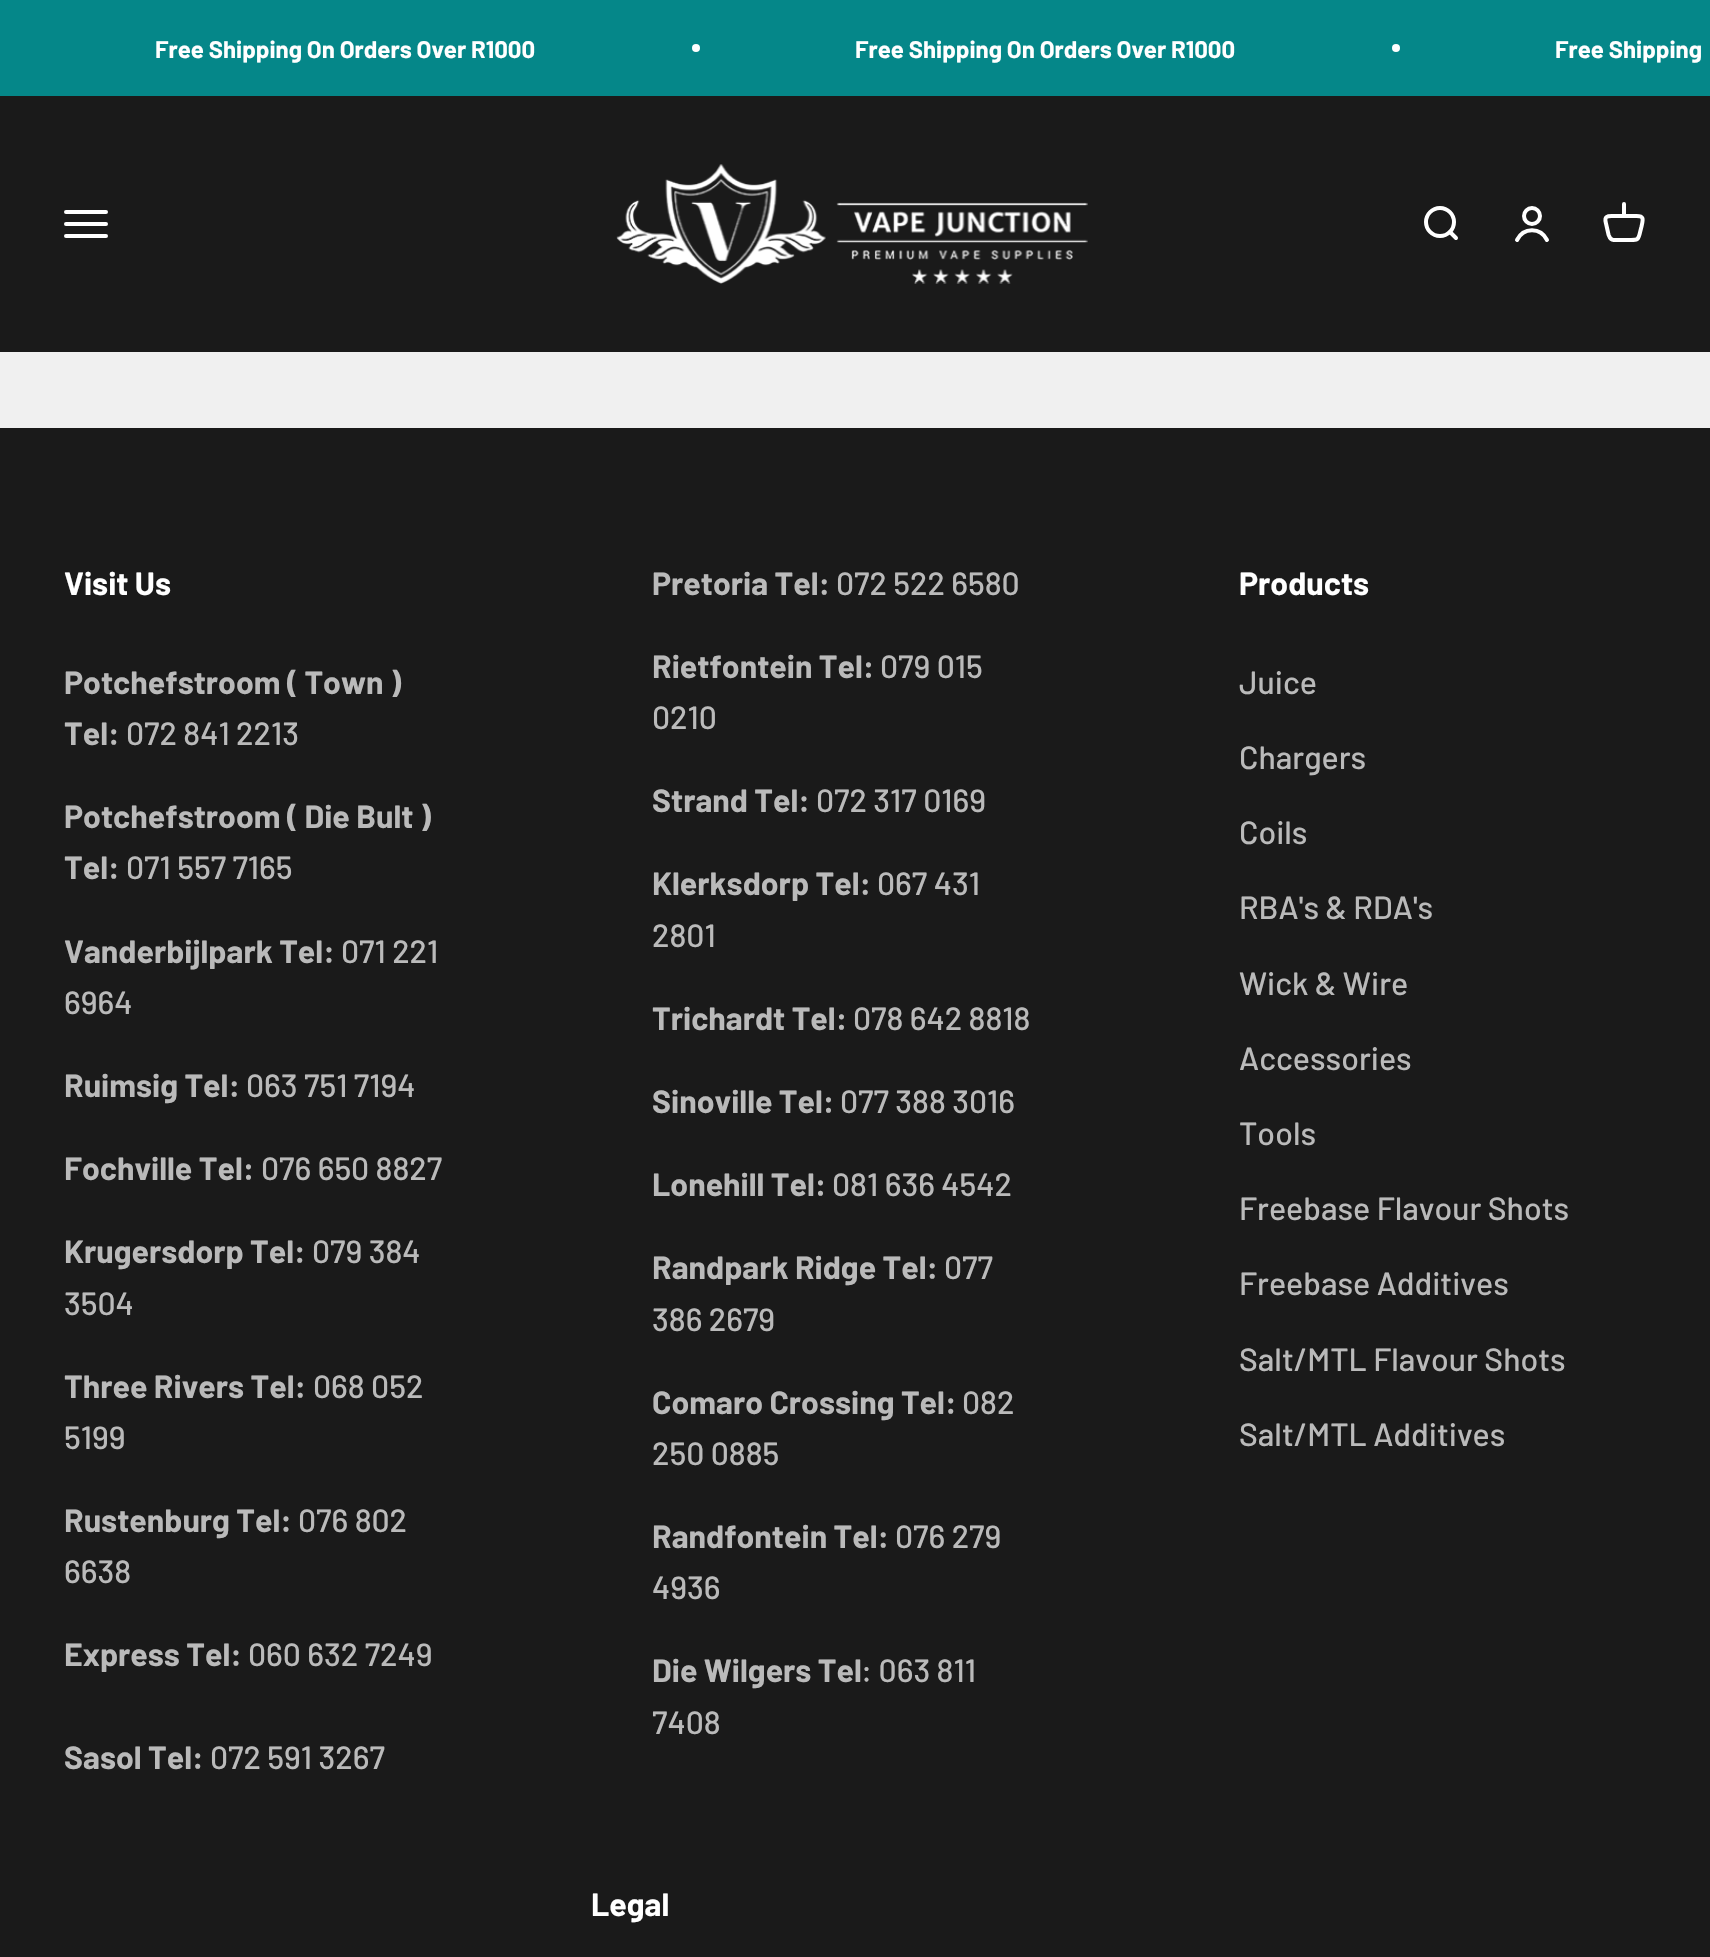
void draw(SkCanvas* canvas) {
	SkPaint fill;
	fill.setAntiAlias(true);
	auto makeFont = [&](const char* family, int weight, float size, bool italic = false) {
		SkFontStyle style(weight, SkFontStyle::kNormal_Width,
			italic ? SkFontStyle::kItalic_Slant : SkFontStyle::kUpright_Slant);
		SkFont result(fontMgr->matchFamilyStyle(family, style), size);
		result.setSubpixel(true);
		return result;
	};
	auto text = [&](const char* s, float x, float y, const SkFont& font) {
		canvas->drawString(s, x, y, font, fill);
	};
	auto box = [&](float l, float t, float r, float b) {
		canvas->drawRect(SkRect::MakeLTRB(l, t, r, b), fill);
	};
	auto picture = [&](const char* path, float l, float t, float r, float b) {
		auto image = SkImages::DeferredFromEncodedData(SkData::MakeFromFileName(path));
		canvas->drawImageRect(image, SkRect::MakeLTRB(l, t, r, b), SkSamplingOptions());
	};
	canvas->clear(0xFFF0F0F0);
	fill.setColor(0xFF058789);
	box(0, 0, 1710, 96);
	fill.setColor(0xFFFFFFFF);
	canvas->drawCircle(696, 48, 4, fill);
	canvas->drawCircle(1396, 48, 4, fill);
	fill.setColor(0xFF1A1A1A);
	box(0, 96, 1710, 352);
	fill.setStyle(SkPaint::kStroke_Style);
	fill.setStrokeWidth(4);
	fill.setStrokeCap(SkPaint::kRound_Cap);
	fill.setColor(0xFFFFFFFF);
	canvas->drawPath(SkPathBuilder().moveTo(66, 212).lineTo(106, 212).moveTo(66, 224).lineTo(106, 224).moveTo(66, 236).lineTo(106, 236).detach(), fill);
	picture("image0.png", 616, 164, 1088, 284);
	fill.setStrokeCap(SkPaint::kButt_Cap);
	canvas->drawCircle(1440, 222, 14, fill);
	fill.setStrokeCap(SkPaint::kRound_Cap);
	fill.setStrokeJoin(SkPaint::kRound_Join);
	canvas->drawPath(SkPathBuilder().moveTo(1450, 232).lineTo(1456, 238).detach(), fill);
	fill.setStrokeCap(SkPaint::kButt_Cap);
	fill.setStrokeJoin(SkPaint::kMiter_Join);
	canvas->drawCircle(1532, 216, 8, fill);
	fill.setStrokeCap(SkPaint::kRound_Cap);
	canvas->drawPath(SkPathBuilder().moveTo(1517, 240).cubicTo(1523.5f, 227, 1540.5f, 227, 1547, 240).detach(), fill);
	fill.setStrokeJoin(SkPaint::kRound_Join);
	canvas->drawPath(SkPathBuilder().moveTo(1624, 216).lineTo(1614, 216).cubicTo(1612, 216, 1608.5f, 215.5f, 1606.5f, 217).cubicTo(1604.5f, 218.5f, 1605.5f, 221.5f, 1606, 223.5f).lineTo(1608.5f, 234.5f).cubicTo(1609.5f, 237, 1610, 240, 1613.5f, 240).lineTo(1631, 240).cubicTo(1637, 240, 1638, 240, 1639.5f, 234.5f).lineTo(1641.5f, 226.5f).cubicTo(1643, 219.5f, 1644.5f, 216, 1636.5f, 216).close().moveTo(1624, 216).lineTo(1624, 204).detach(), fill);
	fill.setStyle(SkPaint::kFill_Style);
	fill.setColor(0xFF1A1A1A);
	box(0, 428, 1710, 1957);
	auto font1 = makeFont("Barlow", 700, 24);
	fill.setColor(0xFFFFFFFF);
	text("Free Shipping On Orders Over R1000", 155, 58, font1);
	text("Free Shipping On Orders Over R1000", 855, 58, font1);
	text("Free Shipping", 1555, 58, font1);
	auto font2 = makeFont("Barlow", 700, 32);
	text("Visit Us", 64, 595, font2);
	fill.setColor(0xFFBABABA);
	text("Potchefstroom ( Town )", 64, 694, font2);
	text("Tel:", 64, 745, font2);
	auto font3 = makeFont("Barlow", 500, 32);
	text("072 841 2213", 126, 745, font3);
	text("Potchefstroom ( Die Bult )", 64, 828, font2);
	text("Tel:", 64, 879, font2);
	text("071 557 7165", 126, 879, font3);
	text("Vanderbijlpark Tel:", 64, 963, font2);
	text("071 221", 341, 963, font3);
	text("6964", 64, 1014, font3);
	text("Ruimsig Tel:", 64, 1097, font2);
	text("063 751 7194", 246, 1097, font3);
	text("Fochville Tel:", 64, 1180, font2);
	text("076 650 8827", 261, 1180, font3);
	text("Krugersdorp Tel:", 64, 1263, font2);
	text("079 384", 312, 1263, font3);
	text("3504", 64, 1315, font3);
	text("Three Rivers Tel:", 64, 1398, font2);
	text("068 052", 313, 1398, font3);
	text("5199", 64, 1449, font3);
	text("Rustenburg Tel:", 64, 1532, font2);
	text("076 802", 298, 1532, font3);
	text("6638", 64, 1583, font3);
	text("Express Tel:", 64, 1666, font2);
	text("060 632 7249", 248, 1666, font3);
	text("Sasol Tel:", 64, 1769, font2);
	text("072 591 3267", 210, 1769, font3);
	text("Pretoria Tel:", 652, 595, font2);
	text("072 522 6580", 836, 595, font3);
	text("Rietfontein Tel:", 652, 678, font2);
	text("079 015", 880, 678, font3);
	text("0210", 652, 729, font3);
	text("Strand Tel:", 652, 812, font2);
	text("072 317 0169", 816, 812, font3);
	text("Klerksdorp Tel:", 652, 895, font2);
	text("067 431", 877, 895, font3);
	text("2801", 652, 947, font3);
	text("Trichardt Tel:", 652, 1030, font2);
	text("078 642 8818", 853, 1030, font3);
	text("Sinoville Tel:", 652, 1113, font2);
	text("077 388 3016", 840, 1113, font3);
	text("Lonehill Tel:", 652, 1196, font2);
	text("081 636 4542", 832, 1196, font3);
	text("Randpark Ridge Tel:", 652, 1279, font2);
	text("077", 944, 1279, font3);
	text("386 2679", 652, 1331, font3);
	text("Comaro Crossing Tel:", 652, 1414, font2);
	text("082", 962, 1414, font3);
	text("250 0885", 652, 1465, font3);
	text("Randfontein Tel:", 652, 1548, font2);
	text("076 279", 895, 1548, font3);
	text("4936", 652, 1599, font3);
	text("Die Wilgers Tel", 652, 1682, font2);
	text(": 063 811", 861, 1682, font3);
	text("7408", 652, 1734, font3);
	fill.setColor(0xFFFFFFFF);
	text("Products", 1239, 595, font2);
	fill.setColor(0xFFBABABA);
	text("Juice", 1239, 694, font3);
	text("Chargers", 1239, 769, font3);
	text("Coils", 1239, 844, font3);
	text("RBA's & RDA's", 1239, 919, font3);
	text("Wick & Wire", 1239, 995, font3);
	text("Accessories", 1239, 1070, font3);
	text("Tools", 1239, 1145, font3);
	text("Freebase Flavour Shots", 1239, 1220, font3);
	text("Freebase Additives", 1239, 1295, font3);
	text("Salt/MTL Flavour Shots", 1239, 1371, font3);
	text("Salt/MTL Additives", 1239, 1446, font3);
	fill.setColor(0xFFFFFFFF);
	text("Legal", 591, 1916, font2);
}
